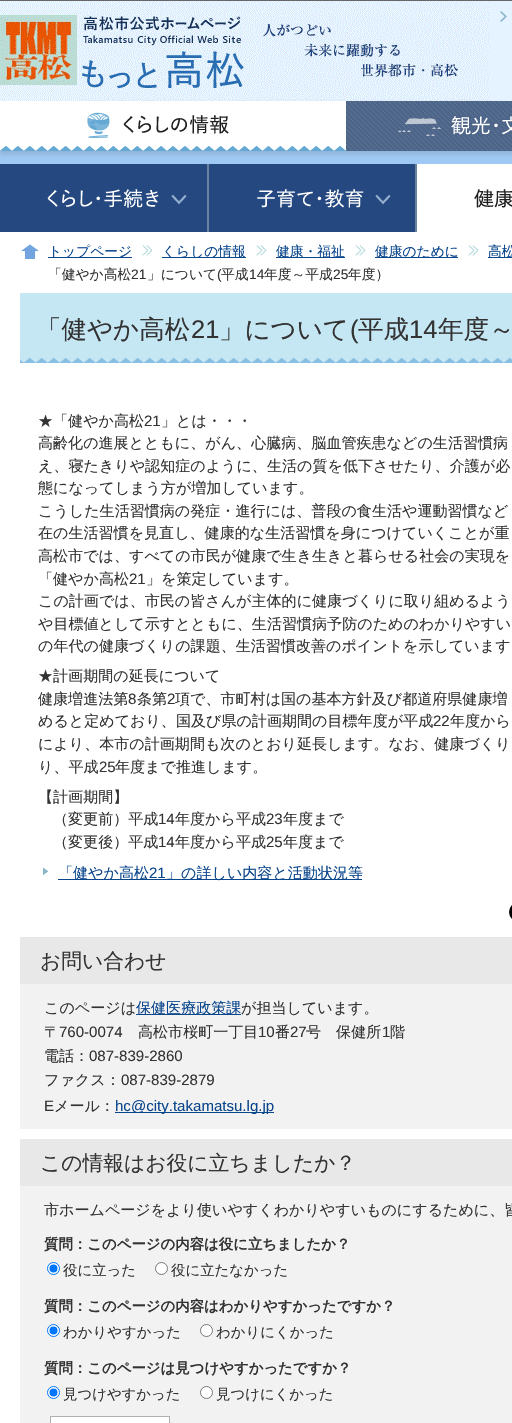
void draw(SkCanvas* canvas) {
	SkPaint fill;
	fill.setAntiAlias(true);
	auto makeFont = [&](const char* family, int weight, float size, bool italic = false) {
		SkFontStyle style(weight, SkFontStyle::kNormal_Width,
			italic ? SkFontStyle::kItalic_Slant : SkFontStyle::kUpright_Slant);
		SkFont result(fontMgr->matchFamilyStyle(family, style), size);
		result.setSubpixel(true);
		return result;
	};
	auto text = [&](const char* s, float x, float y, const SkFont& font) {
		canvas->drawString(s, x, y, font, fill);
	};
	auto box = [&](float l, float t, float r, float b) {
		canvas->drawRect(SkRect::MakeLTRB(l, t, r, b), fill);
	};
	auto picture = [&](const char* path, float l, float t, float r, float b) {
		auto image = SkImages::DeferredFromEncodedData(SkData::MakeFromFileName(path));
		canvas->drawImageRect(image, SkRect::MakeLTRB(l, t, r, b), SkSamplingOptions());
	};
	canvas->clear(0xFF9FC9F4);
	fill.setColor(0xFF8DB1D7);
	fill.setMaskFilter(SkMaskFilter::MakeBlur(kNormal_SkBlurStyle, 2.5f));
	canvas->drawRect(SkRect::MakeLTRB(-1, 1, 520, 154), fill);
	fill.setMaskFilter(nullptr);
	fill.setColor(0xFF666666);
	box(0, 0, 512, 1);
	fill.setColor(0xFFE5F2FF);
	box(490, 1, 512, 101);
	picture("image0.png", 0, 1, 490, 101);
	picture("image1.png", 500, 11, 507, 22);
	picture("image2.png", 346, 101, 512, 151);
	picture("image3.png", 0, 101, 346, 151);
	picture("image4.png", 398, 114, 512, 136);
	fill.setColor(0xFFFFFFFF);
	box(0, 232, 512, 1423);
	picture("image5.png", 0, 164, 208, 232);
	picture("image6.png", 208, 164, 416, 232);
	picture("image7.png", 416, 164, 512, 232);
	picture("image8.png", 21, 244, 39, 259);
	picture("image9.png", 142, 245, 153, 256);
	fill.setColor(0xFF0A468C);
	box(48, 257, 132, 258);
	picture("image9.png", 256, 245, 267, 256);
	box(162, 257, 246, 258);
	picture("image9.png", 355, 245, 366, 256);
	box(276, 257, 345, 258);
	picture("image9.png", 468, 245, 479, 256);
	box(375, 257, 458, 258);
	box(488, 257, 512, 258);
	fill.setColor(0xFFC5E6F3);
	box(20, 293, 512, 358);
	picture("image10.png", 20, 358, 512, 363);
	picture("image11.png", 43, 867, 49, 875);
	fill.setColor(0xFF0A468C);
	box(58, 879, 362, 880);
	picture("image12.png", 509, 905, 512, 919);
	fill.setColor(0xFFF2F2F2);
	box(20, 984, 512, 1129);
	fill.setColor(0xFFE8E8E8);
	box(20, 937, 512, 984);
	fill.setColor(0xFF0A468C);
	box(136, 1014, 241, 1015);
	box(115, 1112, 274, 1113);
	fill.setColor(0xFFF2F2F2);
	box(20, 1186, 512, 1423);
	fill.setColor(0xFFE8E8E8);
	box(20, 1139, 512, 1186);
	fill.setColor(0xFFFFFFFF);
	canvas->drawCircle(53.5f, 1268.5f, 6, fill);
	fill.setStyle(SkPaint::kStroke_Style);
	fill.setStrokeWidth(1);
	fill.setColor(0xFF0075FF);
	canvas->drawCircle(53.5f, 1268.5f, 6, fill);
	fill.setStyle(SkPaint::kFill_Style);
	canvas->drawCircle(53.5f, 1268.5f, 4, fill);
	fill.setColor(0xFFFFFFFF);
	canvas->drawCircle(161.5f, 1268.5f, 6, fill);
	fill.setStyle(SkPaint::kStroke_Style);
	fill.setColor(0xFF767676);
	canvas->drawCircle(161.5f, 1268.5f, 6, fill);
	fill.setStyle(SkPaint::kFill_Style);
	fill.setColor(0xFFFFFFFF);
	canvas->drawCircle(53.5f, 1330.5f, 6, fill);
	fill.setStyle(SkPaint::kStroke_Style);
	fill.setColor(0xFF0075FF);
	canvas->drawCircle(53.5f, 1330.5f, 6, fill);
	fill.setStyle(SkPaint::kFill_Style);
	canvas->drawCircle(53.5f, 1330.5f, 4, fill);
	fill.setColor(0xFFFFFFFF);
	canvas->drawCircle(206.5f, 1330.5f, 6, fill);
	fill.setStyle(SkPaint::kStroke_Style);
	fill.setColor(0xFF767676);
	canvas->drawCircle(206.5f, 1330.5f, 6, fill);
	fill.setStyle(SkPaint::kFill_Style);
	fill.setColor(0xFFFFFFFF);
	canvas->drawCircle(53.5f, 1392.5f, 6, fill);
	fill.setStyle(SkPaint::kStroke_Style);
	fill.setColor(0xFF0075FF);
	canvas->drawCircle(53.5f, 1392.5f, 6, fill);
	fill.setStyle(SkPaint::kFill_Style);
	canvas->drawCircle(53.5f, 1392.5f, 4, fill);
	fill.setColor(0xFFFFFFFF);
	canvas->drawCircle(206.5f, 1392.5f, 6, fill);
	fill.setStyle(SkPaint::kStroke_Style);
	fill.setColor(0xFF767676);
	canvas->drawCircle(206.5f, 1392.5f, 6, fill);
	fill.setStyle(SkPaint::kFill_Style);
	fill.setColor(0xFFFFFFFF);
	canvas->drawRect(SkRect::MakeLTRB(50.5f, 1416.5f, 169.5f, 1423.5f), fill);
	fill.setStyle(SkPaint::kStroke_Style);
	fill.setColor(0xFFB0B0B0);
	canvas->drawRect(SkRect::MakeLTRB(50.5f, 1416.5f, 169.5f, 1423.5f), fill);
	auto font1 = makeFont("WenQuanYi Zen Hei", 500, 13.75f);
	fill.setStyle(SkPaint::kFill_Style);
	fill.setColor(0xFF0A468C);
	text("トップページ", 48, 256, font1);
	text("くらしの情報", 162, 256, font1);
	text("健康・福祉", 276, 256, font1);
	text("健康のために", 375, 256, font1);
	text("高松", 488, 256, font1);
	fill.setColor(0xFF333333);
	text("「健やか高松", 48, 279, font1);
	auto font2 = makeFont("Liberation Sans", 400, 13.75f);
	text("21", 131, 279, font2);
	text("」について", 147, 279, font1);
	text("(", 217, 279, font2);
	text("平成", 221, 279, font1);
	text("14", 249, 279, font2);
	text("年度～平成", 264, 279, font1);
	text("25", 333, 279, font2);
	text("年度）", 348, 279, font1);
	auto font3 = makeFont("WenQuanYi Zen Hei", 500, 25.5f);
	text("「健やか高松", 36, 338, font3);
	auto font4 = makeFont("Liberation Sans", 400, 25.5f);
	text("21", 191, 338, font4);
	text("」について", 219, 338, font3);
	text("(", 350, 338, font4);
	text("平成", 358, 338, font3);
	text("14", 409, 338, font4);
	text("年度～", 438, 338, font3);
	auto font5 = makeFont("WenQuanYi Zen Hei", 500, 15.05f);
	text("★「健やか高松", 38, 426, font5);
	auto font6 = makeFont("Liberation Sans", 400, 15.05f);
	text("21", 144, 426, font6);
	text("」とは・・・", 161, 426, font5);
	text("高齢化の進展とともに、がん、心臓病、脳血管疾患などの生活習慣病", 38, 448, font5);
	text("え、寝たきりや認知症のように、生活の質を低下させたり、介護が必", 38, 471, font5);
	text("態になってしまう方が増加しています。", 38, 493, font5);
	text("こうした生活習慣病の発症・進行には、普段の食生活や運動習慣など", 38, 516, font5);
	text("在の生活習慣を見直し、健康的な生活習慣を身につけていくことが重", 38, 538, font5);
	text("高松市では、すべての市民が健康で生き生きと暮らせる社会の実現を", 38, 561, font5);
	text("「健やか高松", 38, 584, font5);
	text("21", 129, 584, font6);
	text("」を策定しています。", 146, 584, font5);
	text("この計画では、市民の皆さんが主体的に健康づくりに取り組めるよう", 38, 606, font5);
	text("や目標値として示すとともに、生活習慣病予防のためのわかりやすい", 38, 629, font5);
	text("の年代の健康づくりの課題、生活習慣改善のポイントを示しています", 38, 651, font5);
	text("★計画期間の延長について", 38, 681, font5);
	text("健康増進法第", 38, 704, font5);
	text("8", 128, 704, font6);
	text("条第", 137, 704, font5);
	text("2", 167, 704, font6);
	text("項で、市町村は国の基本方針及び都道府県健康増", 175, 704, font5);
	text("めると定めており、国及び県の計画期間の目標年度が平成", 38, 726, font5);
	text("22", 433, 726, font6);
	text("年度から", 450, 726, font5);
	text("により、本市の計画期間も次のとおり延長します。なお、健康づくり", 38, 749, font5);
	text("り、平成", 38, 772, font5);
	text("25", 99, 772, font6);
	text("年度まで推進します。", 115, 772, font5);
	text("【計画期間】", 38, 802, font5);
	text("（変更前）平成", 53, 824, font5);
	text("14", 158, 824, font6);
	text("年度から平成", 175, 824, font5);
	text("23", 266, 824, font6);
	text("年度まで", 283, 824, font5);
	text("（変更後）平成", 53, 847, font5);
	text("14", 158, 847, font6);
	text("年度から平成", 175, 847, font5);
	text("25", 266, 847, font6);
	text("年度まで", 283, 847, font5);
	fill.setColor(0xFF0A468C);
	text("「健やか高松", 58, 878, font5);
	text("21", 149, 878, font6);
	text("」の詳しい内容と活動状況等", 166, 878, font5);
	auto font7 = makeFont("WenQuanYi Zen Hei", 500, 20.75f);
	fill.setColor(0xFF333333);
	text("お問い合わせ", 40, 968, font7);
	text("このページは", 44, 1013, font5);
	fill.setColor(0xFF0A468C);
	text("保健医療政策課", 136, 1013, font5);
	fill.setColor(0xFF333333);
	text("が担当しています。", 241, 1013, font5);
	text("〒", 44, 1037, font5);
	text("760-0074", 59, 1037, font6);
	text("高松市桜町一丁目", 138, 1037, font5);
	text("10", 258, 1037, font6);
	text("番", 275, 1037, font5);
	text("27", 290, 1037, font6);
	text("号　保健所", 306, 1037, font5);
	text("1", 382, 1037, font6);
	text("階", 390, 1037, font5);
	text("電話：", 44, 1061, font5);
	text("087-839-2860", 89, 1061, font6);
	text("ファクス：", 44, 1085, font5);
	text("087-839-2879", 121, 1085, font6);
	text("E", 44, 1111, font6);
	text("メール：", 54, 1111, font5);
	fill.setColor(0xFF0A468C);
	text("hc@city.takamatsu.lg.jp", 115, 1111, font6);
	fill.setColor(0xFF333333);
	text("この情報はお役に立ちましたか？", 40, 1170, font7);
	text("市ホームページをより使いやすくわかりやすいものにするために、皆", 44, 1215, font5);
	auto font8 = makeFont("WenQuanYi Zen Hei", 700, 14.4f);
	text("質問：このページの内容は役に立ちましたか？", 44, 1249, font8);
	auto font9 = makeFont("WenQuanYi Zen Hei", 500, 14.4f);
	text("役に立った", 63, 1275, font9);
	text("役に立たなかった", 171, 1275, font9);
	text("質問：このページの内容はわかりやすかったですか？", 44, 1311, font8);
	text("わかりやすかった", 63, 1337, font9);
	text("わかりにくかった", 216, 1337, font9);
	text("質問：このページは見つけやすかったですか？", 44, 1373, font8);
	text("見つけやすかった", 63, 1399, font9);
	text("見つけにくかった", 216, 1399, font9);
}
